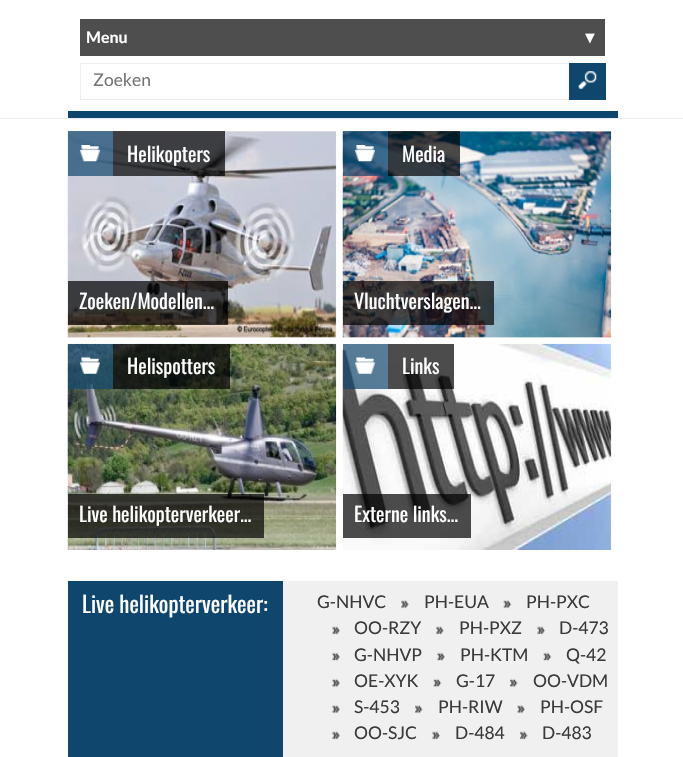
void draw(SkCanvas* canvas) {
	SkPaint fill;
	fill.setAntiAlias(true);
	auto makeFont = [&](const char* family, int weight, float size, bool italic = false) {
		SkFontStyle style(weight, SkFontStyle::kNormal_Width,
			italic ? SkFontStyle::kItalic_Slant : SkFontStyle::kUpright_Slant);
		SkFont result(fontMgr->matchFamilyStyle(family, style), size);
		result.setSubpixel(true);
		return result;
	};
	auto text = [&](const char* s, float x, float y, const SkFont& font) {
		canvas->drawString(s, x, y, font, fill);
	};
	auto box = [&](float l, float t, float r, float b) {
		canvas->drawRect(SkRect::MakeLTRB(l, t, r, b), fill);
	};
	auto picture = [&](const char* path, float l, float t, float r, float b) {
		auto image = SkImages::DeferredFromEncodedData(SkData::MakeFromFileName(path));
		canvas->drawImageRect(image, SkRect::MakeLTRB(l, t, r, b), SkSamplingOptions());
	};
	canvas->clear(0xFFFFFFFF);
	fill.setColor(0xFFEEEEEE);
	box(0, 118, 683, 119);
	fill.setColor(0xFF0F466D);
	box(68, 111, 618, 118);
	fill.setColor(0xFF4E4E4E);
	box(80, 19, 605, 56);
	fill.setColor(0xFFEEEEEE);
	box(80, 63, 569, 64);
	box(80, 99, 569, 100);
	box(80, 63, 81, 100);
	fill.setColor(0xFF0F466D);
	box(569, 63, 606, 100);
	picture("image0.png", 578, 71, 597, 90);
	fill.setColor(0xFFF0F0F0);
	box(68, 131, 336, 338);
	picture("image1.png", 67, 131, 337, 338);
	fill.setColor(0xB30F466D);
	box(68, 131, 113, 176);
	picture("image2.png", 80, 145, 100, 162);
	fill.setColor(0xB3000000);
	box(113, 131, 225, 176);
	box(68, 281, 228, 325);
	fill.setColor(0xFFF0F0F0);
	box(343, 131, 611, 338);
	picture("image3.png", 342, 131, 612, 338);
	fill.setColor(0xB30F466D);
	box(343, 131, 388, 176);
	picture("image4.png", 355, 145, 375, 162);
	fill.setColor(0xB3000000);
	box(388, 131, 460, 176);
	box(343, 281, 494, 325);
	picture("image5.png", 67, 343, 337, 550);
	fill.setColor(0xB30F466D);
	box(68, 344, 113, 389);
	picture("image6.png", 80, 357, 100, 374);
	fill.setColor(0xB3000000);
	box(113, 344, 230, 389);
	box(68, 494, 264, 538);
	picture("image7.png", 342, 343, 612, 550);
	fill.setColor(0xB30F466D);
	box(343, 344, 388, 389);
	picture("image8.png", 355, 357, 375, 374);
	fill.setColor(0xB3000000);
	box(388, 344, 454, 389);
	box(343, 494, 471, 538);
	fill.setColor(0xFFF0F0F0);
	box(283, 581, 618, 757);
	fill.setColor(0xFF0F466D);
	box(68, 581, 283, 757);
	picture("image9.png", 401, 600, 409, 609);
	picture("image10.png", 503, 600, 512, 609);
	picture("image11.png", 332, 626, 340, 635);
	picture("image12.png", 436, 626, 444, 635);
	picture("image13.png", 537, 626, 545, 635);
	picture("image14.png", 332, 652, 340, 661);
	picture("image14.png", 437, 652, 445, 661);
	picture("image15.png", 543, 652, 552, 661);
	picture("image16.png", 332, 678, 340, 688);
	picture("image17.png", 433, 678, 442, 688);
	picture("image18.png", 510, 678, 518, 688);
	picture("image19.png", 332, 705, 340, 714);
	picture("image20.png", 415, 705, 423, 714);
	picture("image19.png", 517, 705, 525, 714);
	picture("image11.png", 332, 731, 340, 740);
	picture("image11.png", 432, 731, 440, 740);
	picture("image21.png", 520, 731, 528, 740);
	auto font1 = makeFont("Lato", 700, 16);
	fill.setColor(0xFFFFFFFF);
	text("Menu", 86, 43, font1);
	auto font2 = makeFont("Liberation Sans", 700, 16);
	text("▼", 582, 43, font2);
	auto font3 = makeFont("Lato", 400, 17.5f);
	fill.setColor(0xFF757575);
	text("Zoeken", 93, 86, font3);
	auto font4 = makeFont("Oswald", 400, 20);
	fill.setColor(0xFFFFFFFF);
	text("Helikopters", 127, 162, font4);
	text("Zoeken/Modellen...", 79, 309, font4);
	text("Media", 402, 162, font4);
	text("Vluchtverslagen...", 354, 309, font4);
	text("Helispotters", 127, 374, font4);
	text("Live helikopterverkeer...", 79, 522, font4);
	text("Links", 402, 374, font4);
	text("Externe links...", 354, 522, font4);
	auto font5 = makeFont("Oswald", 400, 22.5f);
	text("Live helikopterverkeer:", 82, 613, font5);
	fill.setColor(0xFF3A3A3A);
	text("G-NHVC", 317, 608, font3);
	text("PH-EUA", 424, 608, font3);
	text("PH-PXC", 526, 608, font3);
	text("OO-RZY", 354, 634, font3);
	text("PH-PXZ", 459, 634, font3);
	text("D-473", 559, 634, font3);
	text("G-NHVP", 354, 661, font3);
	text("PH-KTM", 460, 661, font3);
	text("Q-42", 566, 661, font3);
	text("OE-XYK", 354, 687, font3);
	text("G-17", 456, 687, font3);
	text("OO-VDM", 533, 687, font3);
	text("S-453", 354, 713, font3);
	text("PH-RIW", 438, 713, font3);
	text("PH-OSF", 540, 713, font3);
	text("OO-SJC", 354, 739, font3);
	text("D-484", 455, 739, font3);
	text("D-483", 542, 739, font3);
}
